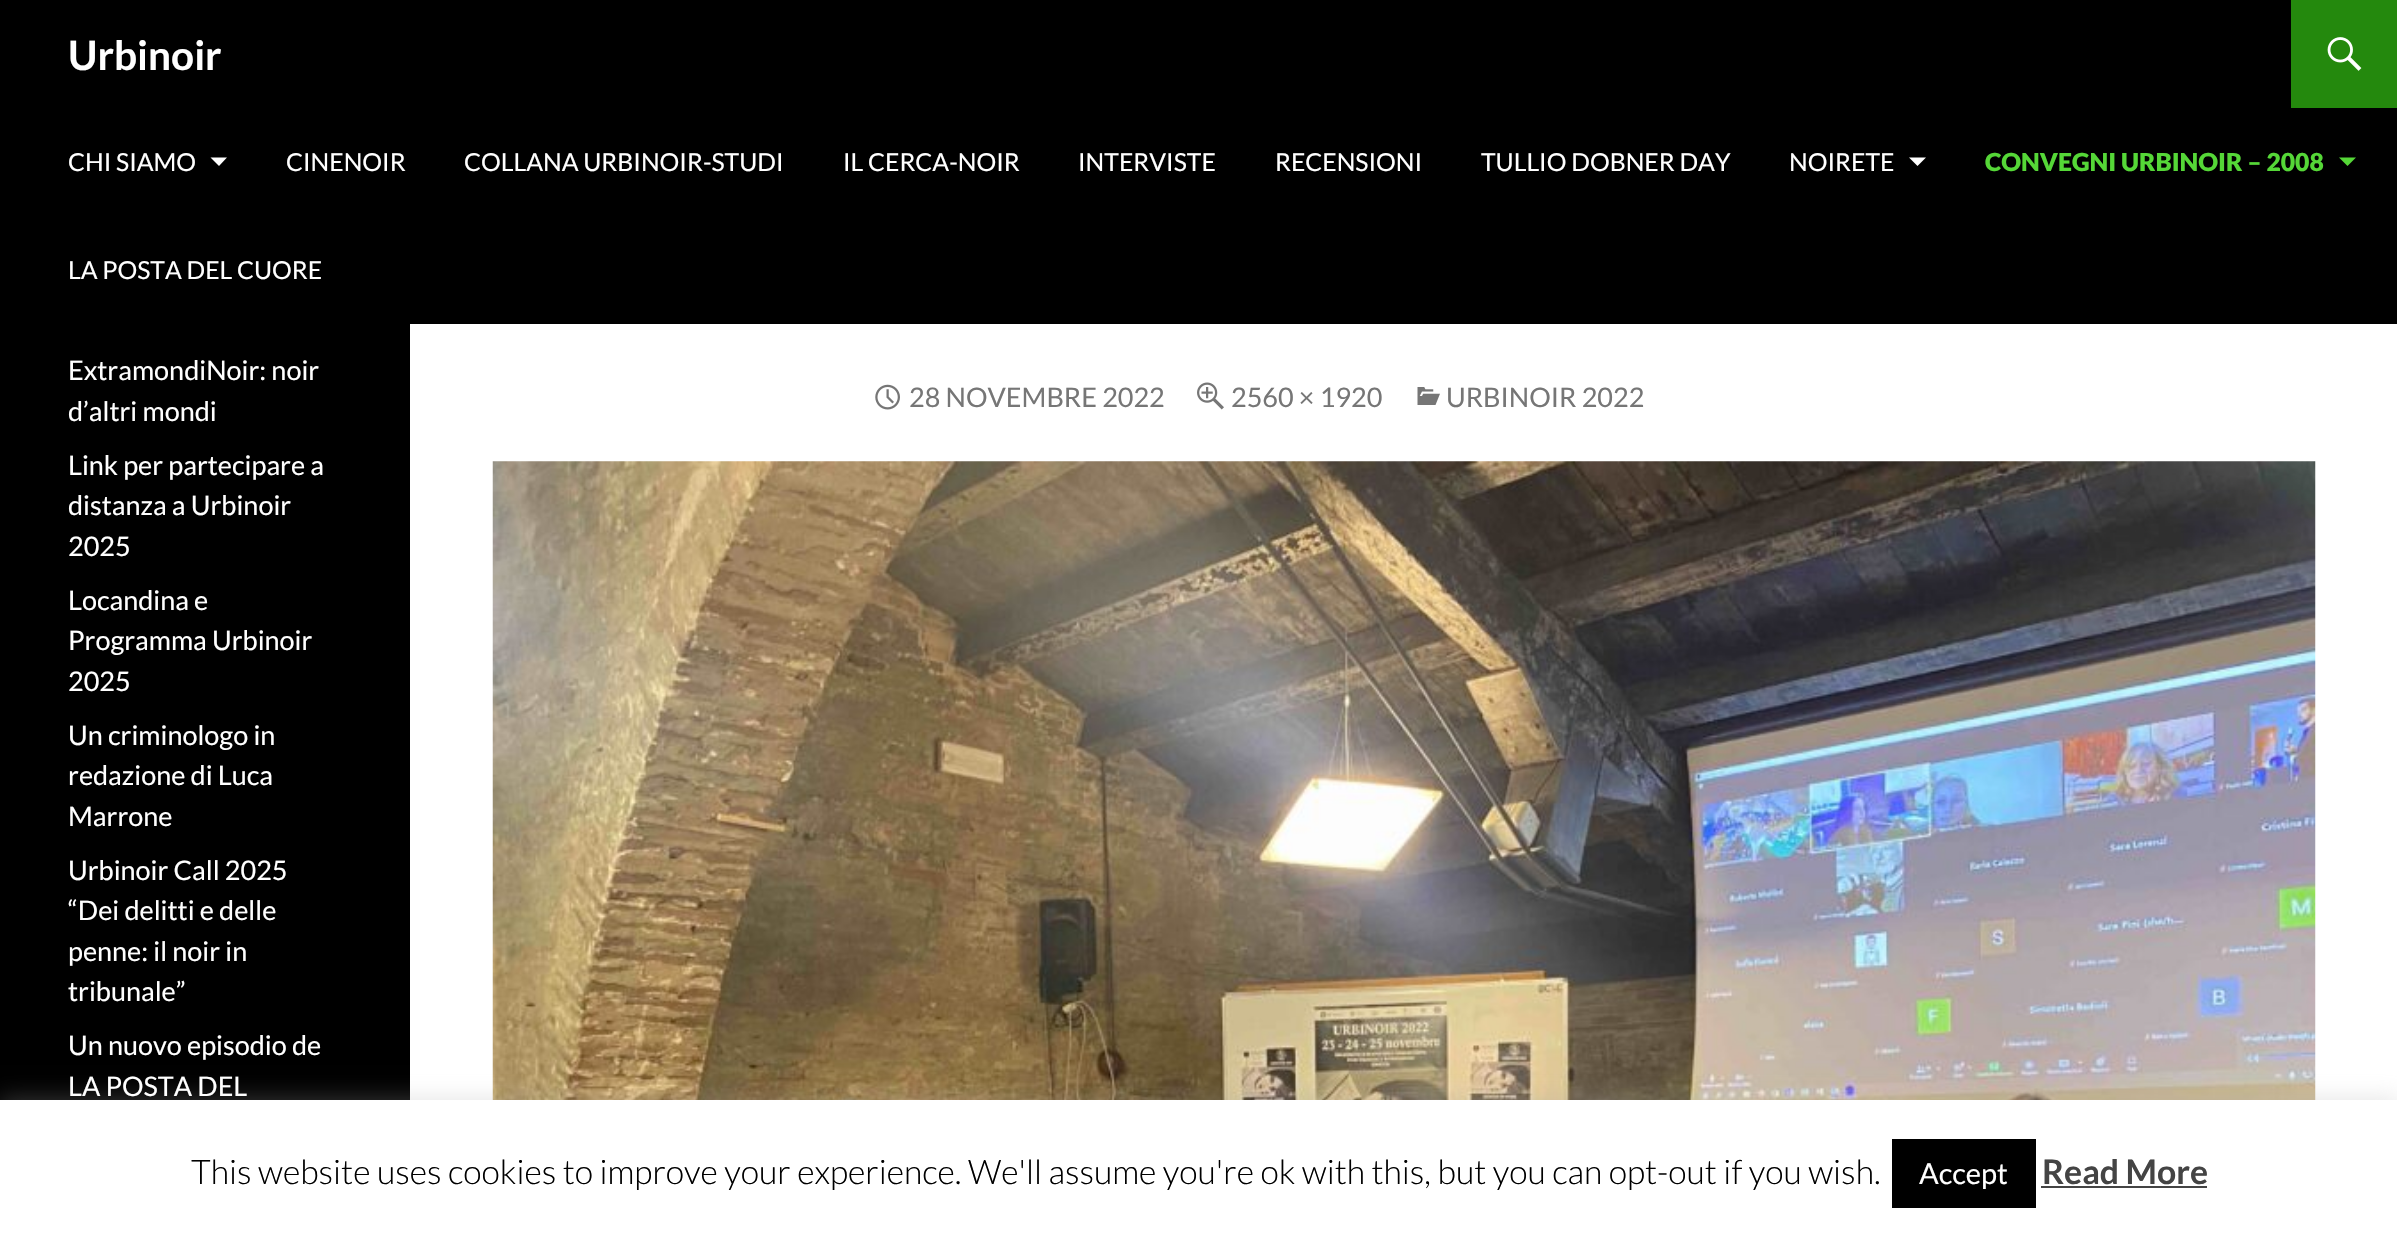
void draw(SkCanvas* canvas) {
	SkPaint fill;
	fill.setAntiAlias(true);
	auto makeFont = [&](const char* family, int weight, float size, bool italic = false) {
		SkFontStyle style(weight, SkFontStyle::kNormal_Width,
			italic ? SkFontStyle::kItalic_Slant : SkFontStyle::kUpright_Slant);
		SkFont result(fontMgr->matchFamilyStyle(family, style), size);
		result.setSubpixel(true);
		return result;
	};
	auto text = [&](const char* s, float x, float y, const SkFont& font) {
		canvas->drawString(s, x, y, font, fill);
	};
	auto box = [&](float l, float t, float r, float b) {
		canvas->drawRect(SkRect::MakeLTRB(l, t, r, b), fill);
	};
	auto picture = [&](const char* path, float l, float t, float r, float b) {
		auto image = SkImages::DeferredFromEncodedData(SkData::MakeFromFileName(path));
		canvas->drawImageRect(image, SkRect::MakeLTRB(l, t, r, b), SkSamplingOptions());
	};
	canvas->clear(0xFFFFFFFF);
	fill.setColor(0xFF000000);
	box(0, 0, 2397, 324);
	fill.setColor(0xFF24890D);
	box(2291, 0, 2397, 108);
	picture("image0.png", 2327, 37, 2362, 71);
	fill.setColor(0xFFFFFFFF);
	canvas->drawPath(SkPathBuilder().moveTo(210.5f, 157.5f).lineTo(219, 166).lineTo(227, 157.5f).close().detach(), fill);
	canvas->drawPath(SkPathBuilder().moveTo(1909, 157.5f).lineTo(1917.5f, 166).lineTo(1926, 157.5f).close().detach(), fill);
	fill.setColor(0xFF55D737);
	canvas->drawPath(SkPathBuilder().moveTo(2339, 157.5f).lineTo(2347.5f, 166).lineTo(2356, 157.5f).close().detach(), fill);
	fill.setColor(0xFF000000);
	box(0, 324, 410, 1100);
	picture("image1.png", 875, 384, 900, 410);
	picture("image2.png", 1197, 382, 1224, 410);
	picture("image3.png", 1417, 387, 1440, 405);
	picture("image4.png", 492, 461, 2316, 1100);
	fill.setColor(0x4DACABAB);
	fill.setMaskFilter(SkMaskFilter::MakeBlur(kNormal_SkBlurStyle, 11));
	canvas->drawRect(SkRect::MakeLTRB(0, 1098, 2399, 1233), fill);
	fill.setMaskFilter(nullptr);
	fill.setColor(0xFFFFFFFF);
	box(0, 1100, 2397, 1234);
	fill.setColor(0xFF000000);
	box(1892, 1139, 2036, 1208);
	fill.setColor(0xFF444444);
	box(2041, 1186, 2207, 1188);
	auto font1 = makeFont("Lato", 700, 40.5f);
	fill.setColor(0xFFFFFFFF);
	text("Urbinoir", 68, 70, font1);
	auto font2 = makeFont("Lato", 400, 24.75f);
	text("CHI SIAMO", 68, 171, font2);
	text("CINENOIR", 286, 171, font2);
	text("COLLANA URBINOIR-STUDI", 464, 171, font2);
	text("IL CERCA-NOIR", 843, 171, font2);
	text("INTERVISTE", 1078, 171, font2);
	text("RECENSIONI", 1275, 171, font2);
	text("TULLIO DOBNER DAY", 1481, 171, font2);
	text("NOIRETE", 1789, 171, font2);
	auto font3 = makeFont("Lato", 900, 24.75f);
	fill.setColor(0xFF55D737);
	text("CONVEGNI URBINOIR – 2008", 1985, 171, font3);
	fill.setColor(0xFFFFFFFF);
	text("LA POSTA DEL CUORE", 68, 279, font2);
	auto font4 = makeFont("Lato", 400, 27);
	text("ExtramondiNoir: noir", 68, 380, font4);
	text("d’altri mondi", 68, 421, font4);
	text("Link per partecipare a", 68, 475, font4);
	text("distanza a Urbinoir", 68, 515, font4);
	text("2025", 68, 556, font4);
	text("Locandina e", 68, 610, font4);
	text("Programma Urbinoir", 68, 650, font4);
	text("2025", 68, 691, font4);
	text("Un criminologo in", 68, 745, font4);
	text("redazione di Luca", 68, 785, font4);
	text("Marrone", 68, 826, font4);
	text("Urbinoir Call 2025", 68, 880, font4);
	text("“Dei delitti e delle", 68, 920, font4);
	text("penne: il noir in", 68, 961, font4);
	text("tribunale”", 68, 1001, font4);
	text("Un nuovo episodio de", 68, 1055, font4);
	text("LA POSTA DEL", 68, 1096, font4);
	fill.setColor(0xFF767676);
	text("28 NOVEMBRE 2022", 909, 407, font4);
	text("2560 × 1920", 1231, 407, font4);
	text("URBINOIR 2022", 1446, 407, font4);
	auto font5 = makeFont("Lato", 300, 33.75f);
	fill.setColor(0xFF000000);
	text("This website uses cookies to improve your experience. We'll assume you're ok with this, but you can opt-out if you wish.", 191, 1184, font5);
	auto font6 = makeFont("Lato", 400, 29);
	fill.setColor(0xFFFFFFFF);
	text("Accept", 1919, 1184, font6);
	auto font7 = makeFont("Lato", 700, 33.75f);
	fill.setColor(0xFF444444);
	text("Read More", 2042, 1184, font7);
}
